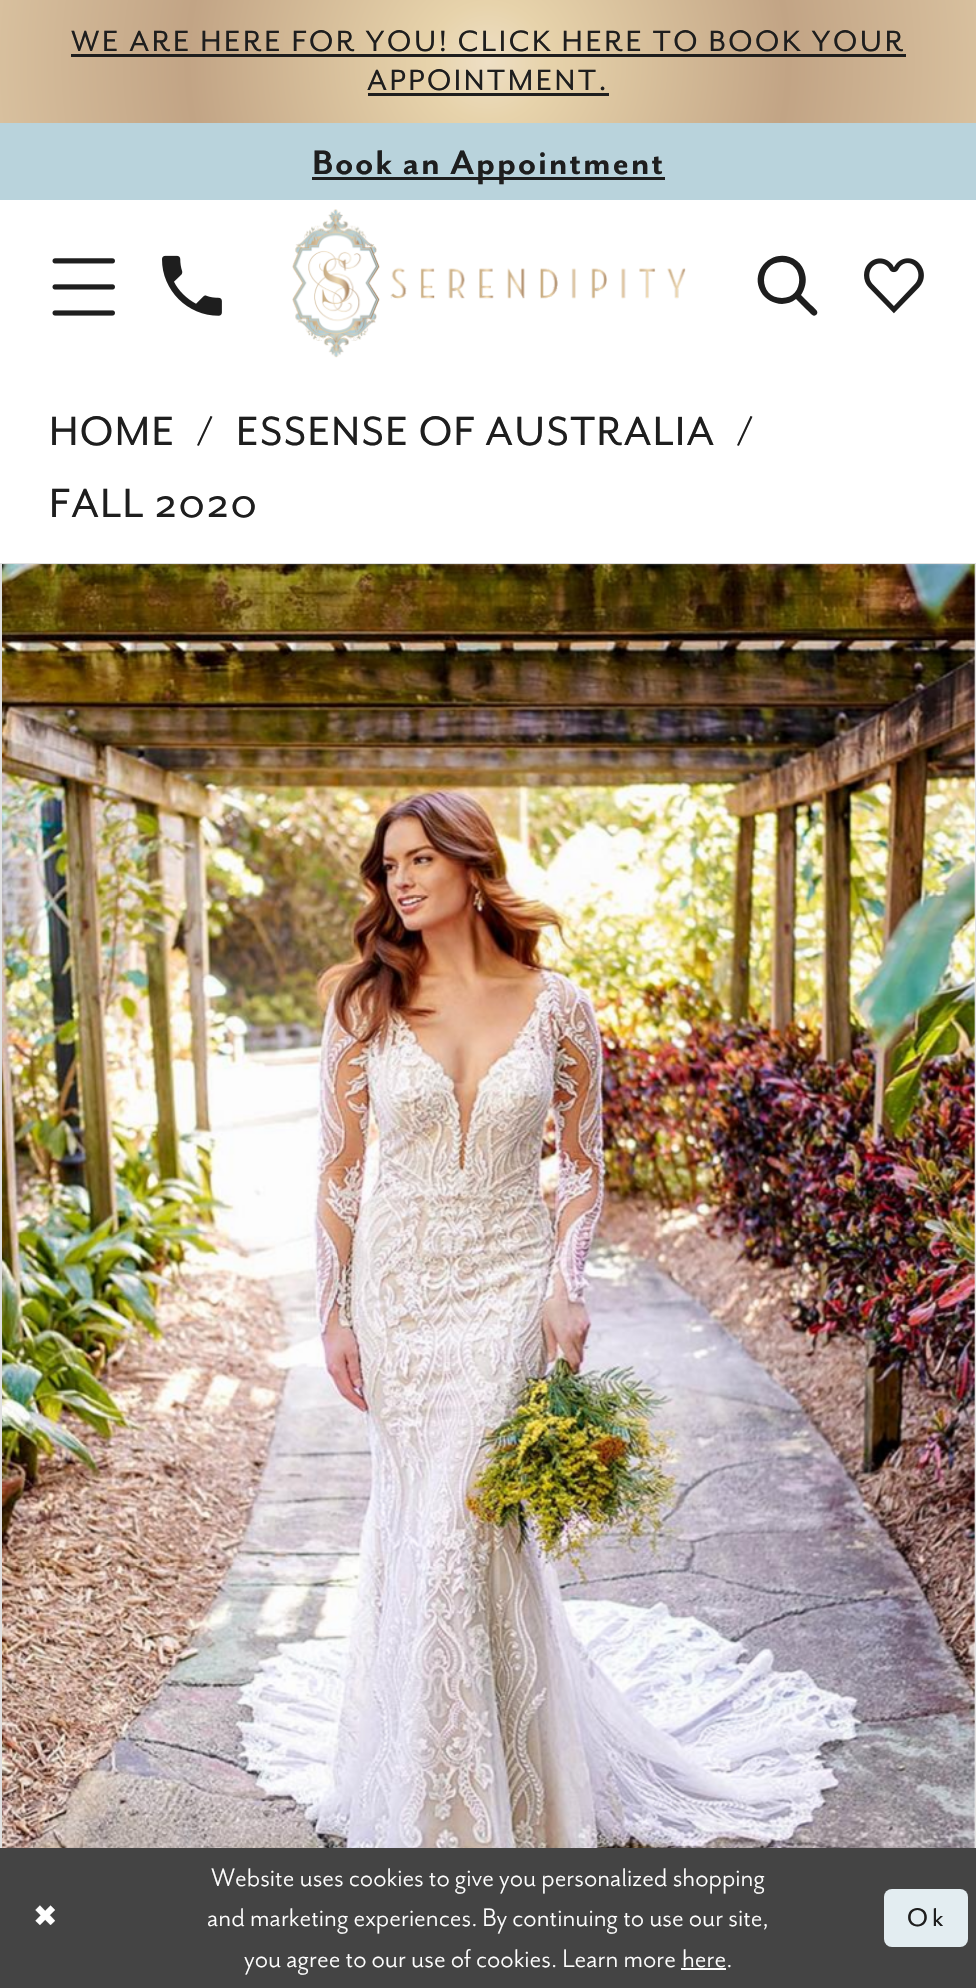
void draw(SkCanvas* canvas) {
	SkPaint fill;
	fill.setAntiAlias(true);
	auto makeFont = [&](const char* family, int weight, float size, bool italic = false) {
		SkFontStyle style(weight, SkFontStyle::kNormal_Width,
			italic ? SkFontStyle::kItalic_Slant : SkFontStyle::kUpright_Slant);
		SkFont result(fontMgr->matchFamilyStyle(family, style), size);
		result.setSubpixel(true);
		return result;
	};
	auto text = [&](const char* s, float x, float y, const SkFont& font) {
		canvas->drawString(s, x, y, font, fill);
	};
	auto spacedText = [&](const char* s, float x, float y, const SkFont& font, const SkPaint& ink, float letter, float word) {
		std::vector<SkGlyphID> glyphs(font.countText(s, strlen(s), SkTextEncoding::kUTF8));
		std::vector<float> xs(glyphs.size());
		font.textToGlyphs(s, strlen(s), SkTextEncoding::kUTF8, glyphs);
		font.getXPos(glyphs, xs, x);
		float extra = 0;
		for (size_t i = 0; i < glyphs.size(); i++) {
			xs[i] += extra;
			extra += letter + word * (glyphs[i] == font.unicharToGlyph(' '));
		}
		canvas->drawTextBlob(SkTextBlob::MakeFromPosHGlyphs(glyphs, xs, y, font), 0, 0, ink);
	};
	auto box = [&](float l, float t, float r, float b) {
		canvas->drawRect(SkRect::MakeLTRB(l, t, r, b), fill);
	};
	auto roundBox = [&](float l, float t, float r, float b, float radius) {
		canvas->drawRoundRect(SkRect::MakeLTRB(l, t, r, b), radius, radius, fill);
	};
	auto picture = [&](const char* path, float l, float t, float r, float b) {
		auto image = SkImages::DeferredFromEncodedData(SkData::MakeFromFileName(path));
		canvas->drawImageRect(image, SkRect::MakeLTRB(l, t, r, b), SkSamplingOptions());
	};
	canvas->clear(0xFFFFFFFF);
	{
		const SkColor colors[] = {0xFFEEDFC5, 0xFFE7D3AB, 0xFFC2A485, 0xFFD8C09E, 0xFFC3A788};
		const float stops[] = {0, 0.12f, 0.61f, 1, 1};
		fill.setShader(SkGradientShader::MakeRadial({488, 62}, 492, colors, stops, 5, SkTileMode::kClamp));
		fill.setAlpha(255);
	}
	box(0, 0, 976, 123);
	fill.setShader(nullptr);
	fill.setColor(0xFF1E1E1E);
	box(71, 54, 906, 57);
	box(368, 93, 609, 96);
	fill.setColor(0xFFB9D3DC);
	box(0, 123, 976, 200);
	fill.setColor(0xFF1E1E1E);
	box(312, 177, 665, 180);
	picture("image0.png", 52, 258, 115, 316);
	picture("image1.png", 162, 255, 222, 316);
	picture("image2.png", 292, 209, 686, 358);
	canvas->drawPath(SkPathBuilder().moveTo(801, 295).lineTo(811, 305).cubicTo(813, 307, 819, 311, 817, 314).cubicTo(813, 319, 809, 311, 807, 310).lineTo(796, 299).cubicTo(785, 308, 768, 304, 761, 292).cubicTo(748, 269, 776, 245, 797, 261).cubicTo(801, 264, 804, 269, 805, 274).cubicTo(807, 281, 805, 289, 801, 295).close().moveTo(782, 298).cubicTo(805, 298, 805, 262, 782, 262).cubicTo(758, 262, 758, 298, 782, 298).close().detach(), fill);
	picture("image3.png", 864, 258, 924, 314);
	fill.setStyle(SkPaint::kStroke_Style);
	fill.setStrokeWidth(2);
	fill.setColor(0xFFE0E0E0);
	canvas->drawRect(SkRect::MakeLTRB(1, 564, 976, 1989), fill);
	picture("image4.png", 2, 564, 975, 1848);
	fill.setStyle(SkPaint::kFill_Style);
	fill.setColor(0xFF444444);
	box(0, 1848, 976, 1988);
	fill.setColor(0xFFFFFFFF);
	box(681, 1968, 726, 1970);
	fill.setColor(0xFFE3EDF1);
	roundBox(884, 1889, 968, 1947, 8);
	auto font1 = makeFont("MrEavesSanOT", 400, 33.85f);
	fill.setColor(0xFF1E1E1E);
	spacedText("WE ARE HERE FOR YOU! CLICK HERE TO BOOK YOUR", 71, 51, font1, fill, 2.6f, 0);
	spacedText("APPOINTMENT.", 367, 90, font1, fill, 2.6f, 0);
	auto font2 = makeFont("MrEavesSanOT", 700, 39);
	spacedText("Book an Appointment", 312, 174, font2, fill, 1.75f, 0);
	auto font3 = makeFont("MrEavesSanOT", 400, 46.9f);
	spacedText("HOME", 49, 445, font3, fill, 1.4f, 0);
	spacedText("/", 197, 445, font3, fill, 1.4f, 0);
	spacedText("ESSENSE OF AUSTRALIA", 236, 445, font3, fill, 1.4f, 0);
	spacedText("/", 737, 445, font3, fill, 1.4f, 0);
	spacedText("FALL 2020", 49, 517, font3, fill, 1.4f, 0);
	auto font4 = makeFont("DejaVu Sans", 400, 29.25f);
	fill.setColor(0xFFFFFFFF);
	spacedText("✖", 33, 1926, font4, fill, 4, 0);
	auto font5 = makeFont("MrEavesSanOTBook", 400, 29.25f);
	text("Website uses cookies to give you personalized shopping", 211, 1886, font5);
	text("and marketing experiences. By continuing to use our site,", 207, 1926, font5);
	text("you agree to our use of cookies. Learn more", 244, 1967, font5);
	text("here.", 682, 1967, font5);
	auto font6 = makeFont("MrEavesSanOT", 400, 29.25f);
	fill.setColor(0xFF1E1E1E);
	spacedText("Ok", 907, 1926, font6, fill, 4, 0);
}
